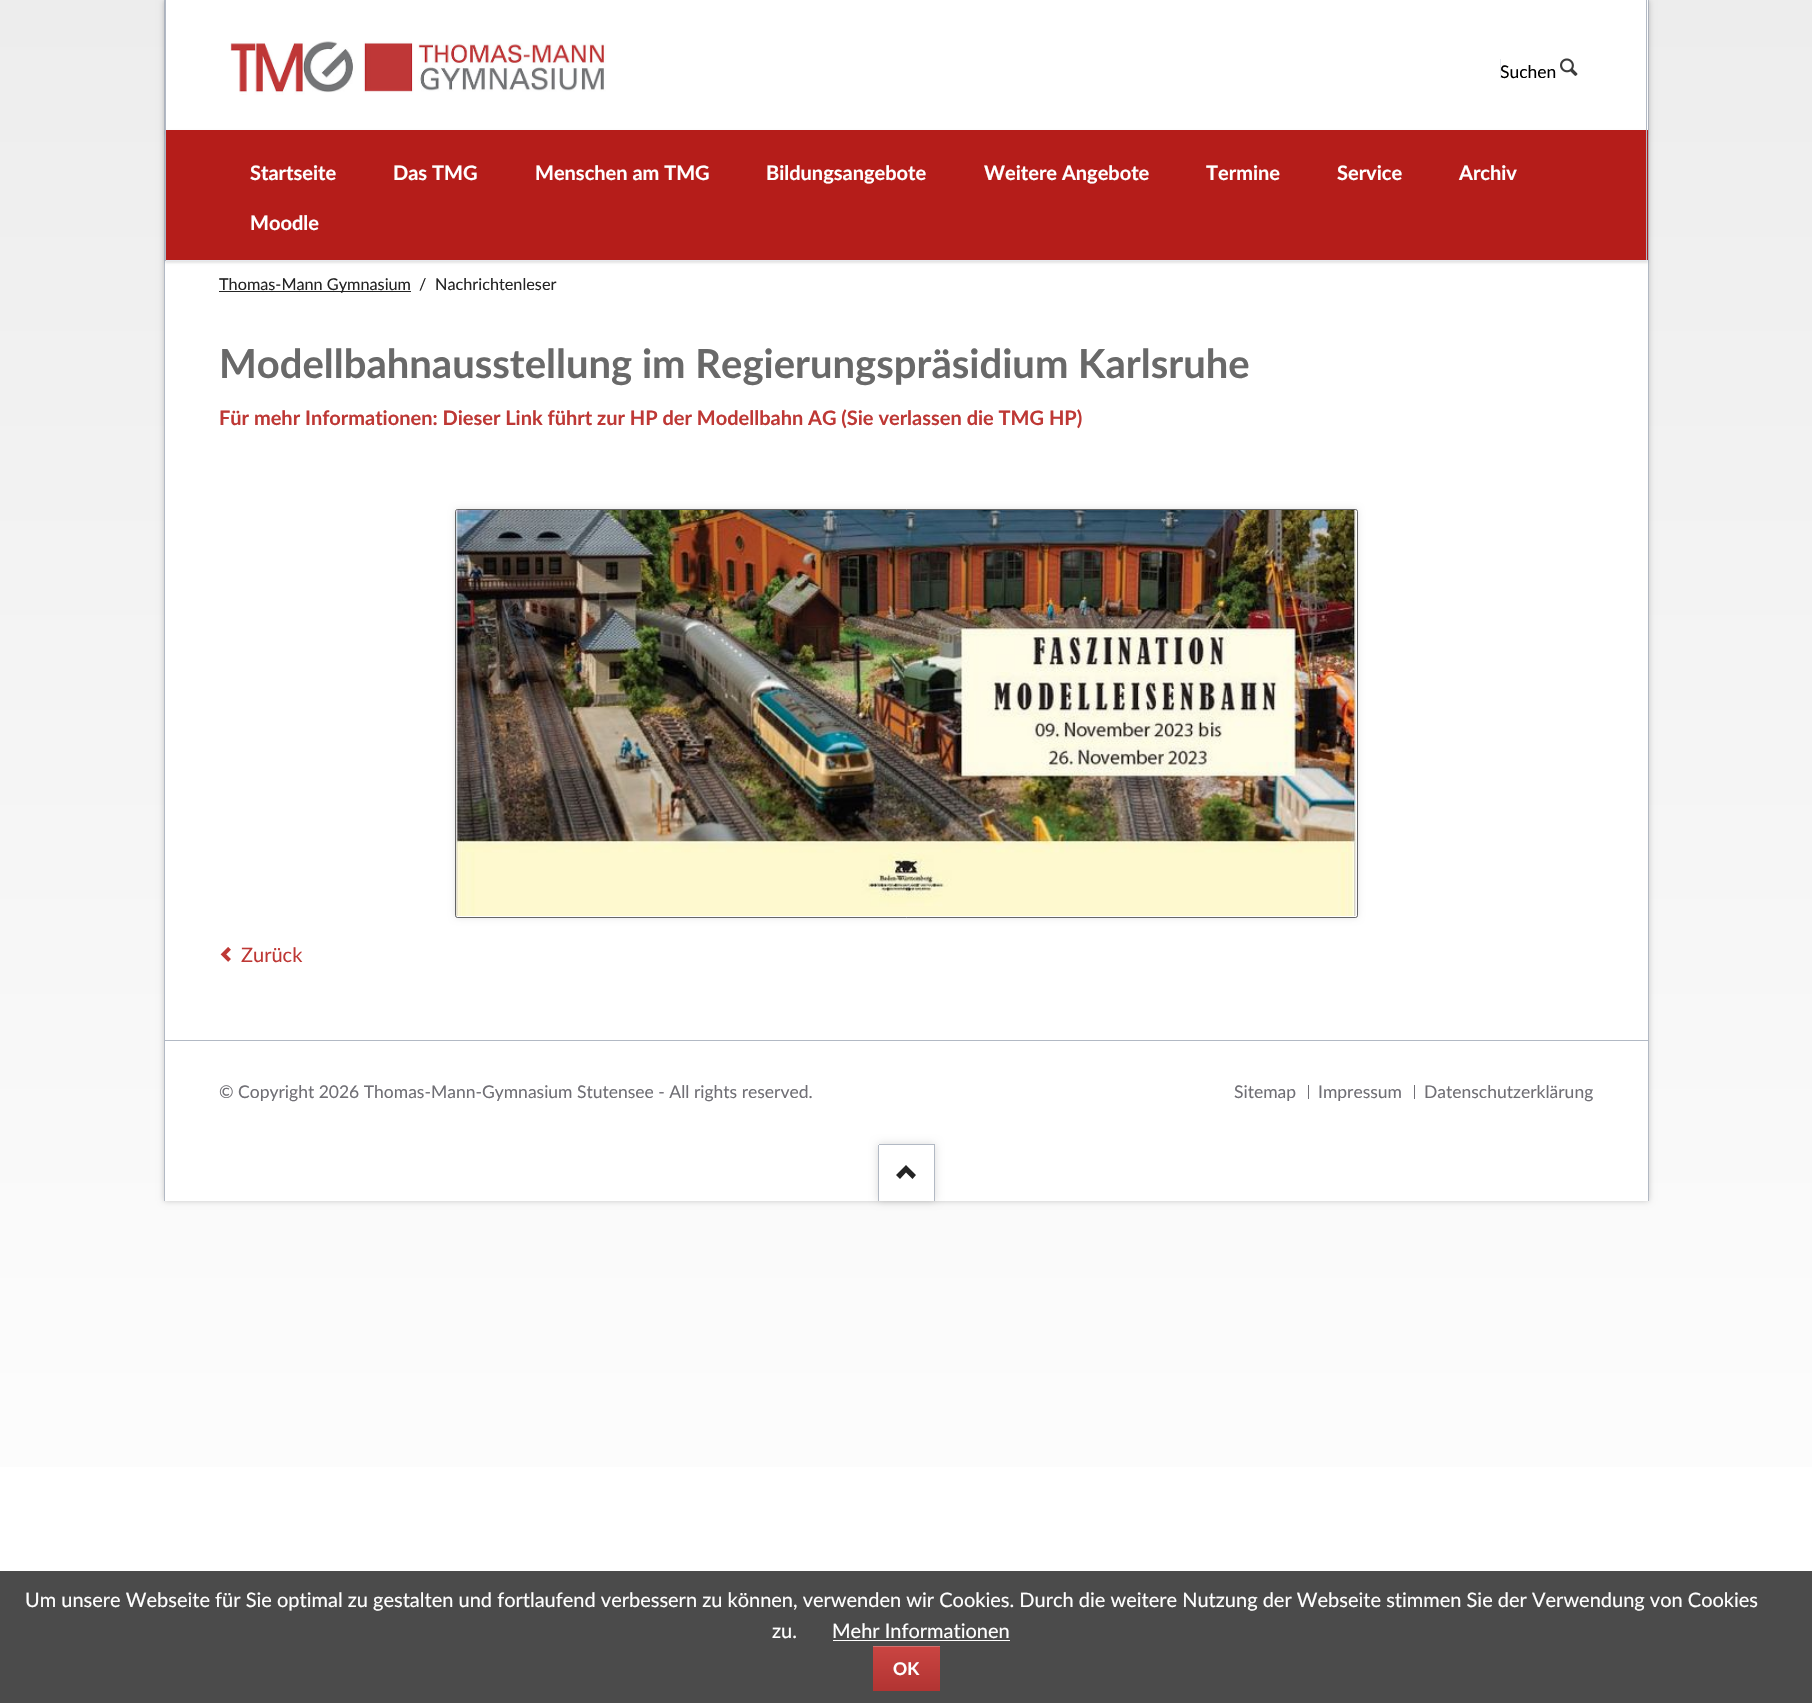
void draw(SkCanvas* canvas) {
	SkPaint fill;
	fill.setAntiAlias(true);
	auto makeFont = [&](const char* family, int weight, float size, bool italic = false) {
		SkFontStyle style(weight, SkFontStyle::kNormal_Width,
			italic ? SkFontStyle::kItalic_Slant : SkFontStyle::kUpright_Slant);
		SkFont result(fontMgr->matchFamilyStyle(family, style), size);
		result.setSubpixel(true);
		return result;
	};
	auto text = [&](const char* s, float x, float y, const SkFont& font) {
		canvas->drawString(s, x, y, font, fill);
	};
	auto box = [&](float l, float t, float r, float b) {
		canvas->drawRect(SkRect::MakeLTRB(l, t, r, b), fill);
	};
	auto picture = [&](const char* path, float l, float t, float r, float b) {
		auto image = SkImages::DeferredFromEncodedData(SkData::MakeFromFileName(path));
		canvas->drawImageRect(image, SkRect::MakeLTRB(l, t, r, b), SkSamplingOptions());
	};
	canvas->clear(0xFFFFFFFF);
	{
		const SkColor colors[] = {0xFFEDEDED, 0xFFFFFFFF};
		const float stops[] = {0, 1};
		const SkPoint ends[] = {{906, 0}, {906, 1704}};
		fill.setShader(SkGradientShader::MakeLinear(ends, colors, stops, 2, SkTileMode::kClamp));
		fill.setAlpha(255);
	}
	box(0, 0, 1812, 1467);
	fill.setShader(nullptr);
	fill.setColor(0x33000000);
	fill.setMaskFilter(SkMaskFilter::MakeBlur(kNormal_SkBlurStyle, 3));
	canvas->drawRect(SkRect::MakeLTRB(164, 0, 1649, 1201), fill);
	fill.setMaskFilter(nullptr);
	fill.setColor(0xFFFFFFFF);
	box(165, 261, 1648, 1201);
	fill.setColor(0xFFB2B9C4);
	box(1648, 0, 1649, 1201);
	box(164, 0, 165, 1201);
	fill.setColor(0x1A000000);
	fill.setMaskFilter(SkMaskFilter::MakeBlur(kNormal_SkBlurStyle, 1));
	canvas->drawRect(SkRect::MakeLTRB(165, 1, 1648, 135), fill);
	fill.setMaskFilter(nullptr);
	fill.setColor(0xFFFFFFFF);
	box(166, 0, 1648, 130);
	fill.setColor(0xFFB2B9C4);
	box(1646, 0, 1647, 134);
	box(165, 0, 166, 134);
	picture("image0.png", 230, 41, 606, 95);
	picture("image1.png", 1560, 58, 1578, 76);
	fill.setColor(0x1A000000);
	fill.setMaskFilter(SkMaskFilter::MakeBlur(kNormal_SkBlurStyle, 1));
	canvas->drawRect(SkRect::MakeLTRB(165, 131, 1648, 263), fill);
	fill.setMaskFilter(nullptr);
	fill.setColor(0xFFB51D1A);
	box(166, 130, 1648, 260);
	fill.setColor(0xFFB2B9C4);
	box(1646, 130, 1647, 261);
	fill.setColor(0xFFE5E8EE);
	box(165, 260, 1648, 261);
	fill.setColor(0xFFB2B9C4);
	box(165, 130, 166, 261);
	fill.setColor(0xFF242424);
	box(219, 291, 411, 292);
	fill.setColor(0x1A000000);
	fill.setMaskFilter(SkMaskFilter::MakeBlur(kNormal_SkBlurStyle, 3));
	canvas->drawRoundRect(SkRect::MakeLTRB(455, 509, 1358, 918), 2.5f, 2.5f, fill);
	fill.setMaskFilter(nullptr);
	canvas->save();
	canvas->clipPath(SkPathBuilder().moveTo(457.5f, 509).lineTo(1355.5f, 509).cubicTo(1357, 509, 1358, 510, 1358, 511.5f).lineTo(1358, 915.5f).cubicTo(1358, 917, 1357, 918, 1355.5f, 918).lineTo(457.5f, 918).cubicTo(456, 918, 455, 917, 455, 915.5f).lineTo(455, 511.5f).cubicTo(455, 510, 456, 509, 457.5f, 509).close().detach(), true);
	{
		const SkColor colors[] = {0xFFFFFFFF, 0xFFFAFAFA};
		const float stops[] = {0, 1};
		const SkPoint ends[] = {{906, 104}, {906, 510}};
		fill.setShader(SkGradientShader::MakeLinear(ends, colors, stops, 2, SkTileMode::kClamp));
		fill.setAlpha(255);
	}
	box(455, 509, 1358, 510);
	canvas->restore();
	{
		const SkColor colors[] = {0xFFFFFFFF, 0xFFFBFBFB};
		const float stops[] = {0, 1};
		const SkPoint ends[] = {{906, 510}, {906, 916}};
		fill.setShader(SkGradientShader::MakeLinear(ends, colors, stops, 2, SkTileMode::kClamp));
		fill.setAlpha(255);
	}
	box(455, 510, 1358, 916);
	canvas->save();
	canvas->clipPath(SkPathBuilder().moveTo(457.5f, 509).lineTo(1355.5f, 509).cubicTo(1357, 509, 1358, 510, 1358, 511.5f).lineTo(1358, 915.5f).cubicTo(1358, 917, 1357, 918, 1355.5f, 918).lineTo(457.5f, 918).cubicTo(456, 918, 455, 917, 455, 915.5f).lineTo(455, 511.5f).cubicTo(455, 510, 456, 509, 457.5f, 509).close().detach(), true);
	{
		const SkColor colors[] = {0xFFFFFFFF, 0xFFFAFAFA};
		const float stops[] = {0, 1};
		const SkPoint ends[] = {{906, 916}, {906, 1323}};
		fill.setShader(SkGradientShader::MakeLinear(ends, colors, stops, 2, SkTileMode::kClamp));
		fill.setAlpha(255);
	}
	box(455, 916, 1358, 918);
	canvas->restore();
	fill.setStyle(SkPaint::kStroke_Style);
	fill.setStrokeWidth(1);
	fill.setShader(nullptr);
	fill.setColor(0x99000000);
	canvas->drawRoundRect(SkRect::MakeLTRB(455.5f, 509.5f, 1357.5f, 917.5f), 2, 2, fill);
	picture("image2.png", 456, 510, 1357, 916);
	picture("image3.png", 220, 947, 231, 962);
	fill.setStyle(SkPaint::kFill_Style);
	fill.setColor(0xFFB2B9C4);
	box(165, 1040, 1648, 1041);
	fill.setColor(0xFF706F75);
	box(1308, 1085, 1309, 1099);
	box(1414, 1085, 1415, 1099);
	canvas->save();
	canvas->clipPath(SkPathBuilder(SkPathFillType::kEvenOdd).moveTo(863, 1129).lineTo(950, 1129).lineTo(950, 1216).lineTo(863, 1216).close().moveTo(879, 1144).lineTo(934, 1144).cubicTo(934.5f, 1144, 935, 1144.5f, 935, 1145).lineTo(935, 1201).lineTo(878, 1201).lineTo(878, 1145).cubicTo(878, 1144.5f, 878.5f, 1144, 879, 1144).close().detach(), true);
	fill.setColor(0x26000000);
	fill.setMaskFilter(SkMaskFilter::MakeBlur(kNormal_SkBlurStyle, 4.5f));
	canvas->drawRoundRect(SkRect::MakeLTRB(878, 1144, 935, 1201), 1, 1, fill);
	fill.setMaskFilter(nullptr);
	canvas->restore();
	fill.setColor(0xFFB2B9C4);
	box(879, 1144, 935, 1145);
	box(934, 1145, 935, 1201);
	box(878, 1145, 879, 1201);
	fill.setColor(0xFF242424);
	canvas->drawPath(SkPathBuilder().moveTo(896, 1175).lineTo(900, 1179).lineTo(906, 1172.5f).lineTo(912.5f, 1179).lineTo(916, 1175).lineTo(906, 1165).close().detach(), fill);
	fill.setColor(0xFF4B4B4B);
	box(0, 1571, 1812, 1703);
	fill.setColor(0xFFFFFFFF);
	box(833, 1640, 1010, 1641);
	{
		const SkColor colors[] = {0xFFCA4542, 0xFFB23432};
		const float stops[] = {0, 1};
		const SkPoint ends[] = {{906, 1646}, {906, 1691}};
		fill.setShader(SkGradientShader::MakeLinear(ends, colors, stops, 2, SkTileMode::kClamp));
		fill.setAlpha(255);
	}
	box(873, 1647, 940, 1691);
	fill.setShader(nullptr);
	fill.setColor(0xFFD17371);
	box(873, 1646, 940, 1647);
	auto font1 = makeFont("Lato", 400, 17.5f);
	fill.setColor(0xFF000000);
	text("Suchen", 1500, 78, font1);
	fill.setColor(0xFFE5E8EE);
	box(1500, 59, 1501, 78);
	auto font2 = makeFont("Lato", 700, 20);
	fill.setColor(0xFFFFFFFF);
	text("Startseite", 250, 180, font2);
	text("Das TMG", 393, 180, font2);
	text("Menschen am TMG", 535, 180, font2);
	text("Bildungsangebote", 766, 180, font2);
	text("Weitere Angebote", 984, 180, font2);
	text("Termine", 1206, 180, font2);
	text("Service", 1337, 180, font2);
	text("Archiv", 1459, 180, font2);
	text("Moodle", 250, 230, font2);
	auto font3 = makeFont("Lato", 400, 16.25f);
	fill.setColor(0xFF242424);
	text("Thomas-Mann Gymnasium", 219, 290, font3);
	text("/", 419, 290, font3);
	text("Nachrichtenleser", 435, 290, font3);
	auto font4 = makeFont("Lato", 700, 40);
	fill.setColor(0xFF696969);
	text("Modellbahnausstellung im Regierungspräsidium Karlsruhe", 219, 378, font4);
	fill.setColor(0xFFBE3835);
	text("Für mehr Informationen: Dieser Link führt zur HP der Modellbahn AG (Sie verlassen die TMG HP)", 219, 425, font2);
	auto font5 = makeFont("Lato", 400, 20);
	text("Zurück", 241, 962, font5);
	fill.setColor(0xFF706F75);
	text("© Copyright 2026 Thomas-Mann-Gymnasium Stutensee - All rights reserved.", 219, 1098, font1);
	text("Sitemap", 1234, 1098, font1);
	text("Impressum", 1318, 1098, font1);
	text("Datenschutzerklärung", 1424, 1098, font1);
	fill.setColor(0xFFFFFFFF);
	text("Um unsere Webseite für Sie optimal zu gestalten und fortlaufend verbessern zu können, verwenden wir Cookies. Durch die weitere Nutzung der Webseite stimmen Sie der Verwendung von Cookies", 25, 1607, font5);
	text("zu.", 772, 1638, font5);
	text("Mehr Informationen", 832, 1638, font5);
	auto font6 = makeFont("Lato", 700, 17.5f);
	text("OK", 893, 1675, font6);
}
